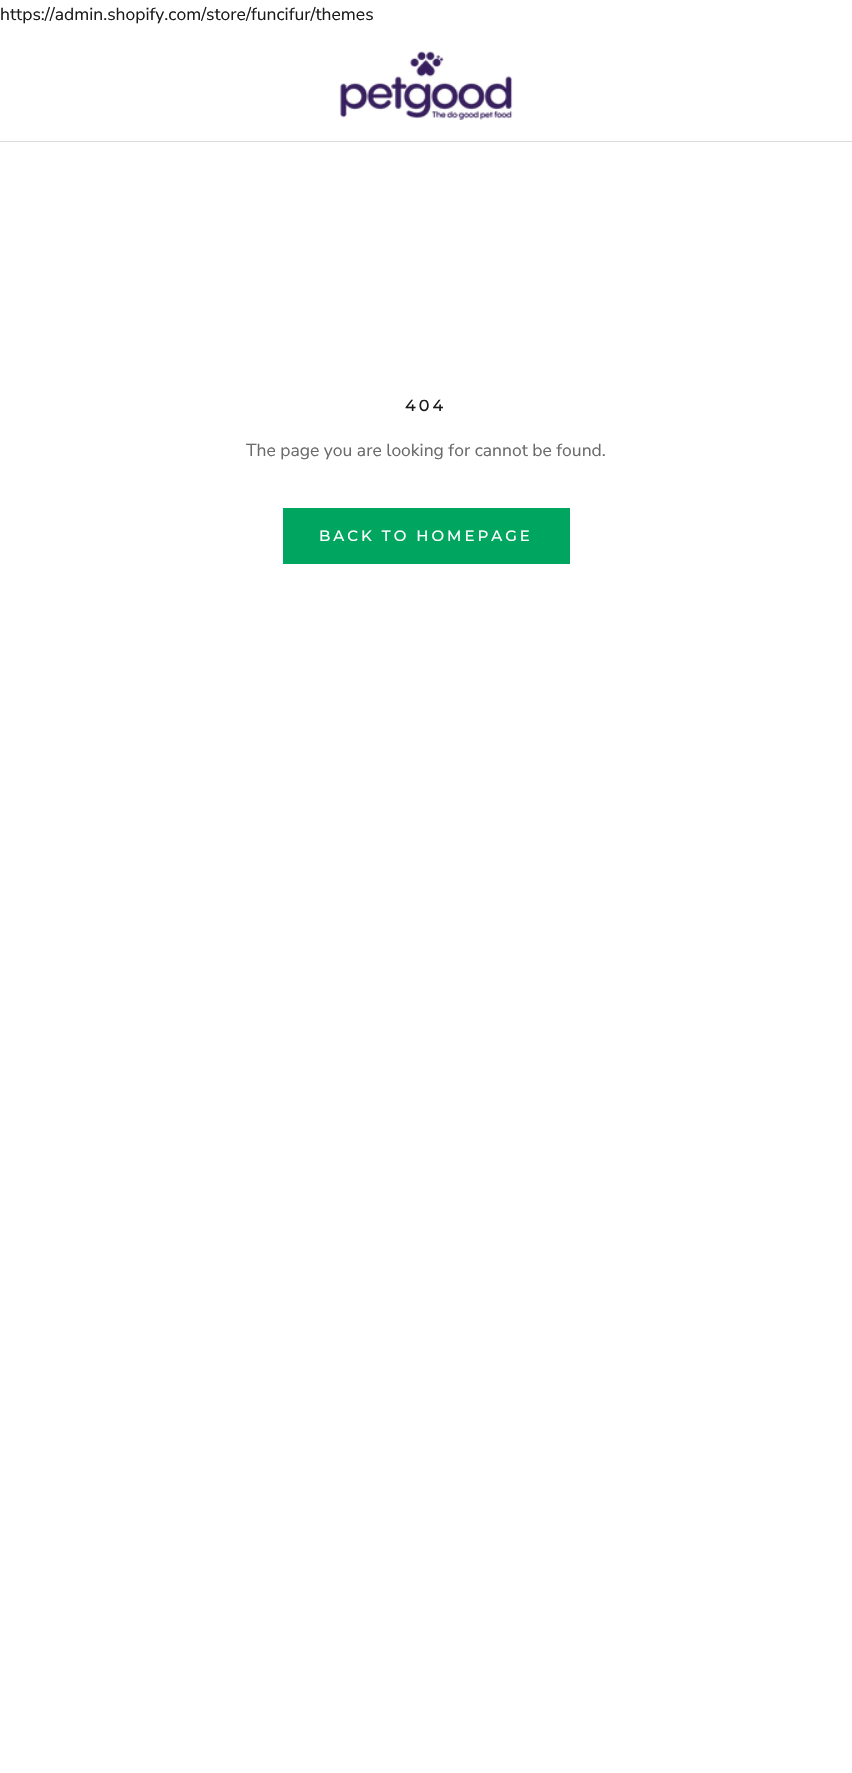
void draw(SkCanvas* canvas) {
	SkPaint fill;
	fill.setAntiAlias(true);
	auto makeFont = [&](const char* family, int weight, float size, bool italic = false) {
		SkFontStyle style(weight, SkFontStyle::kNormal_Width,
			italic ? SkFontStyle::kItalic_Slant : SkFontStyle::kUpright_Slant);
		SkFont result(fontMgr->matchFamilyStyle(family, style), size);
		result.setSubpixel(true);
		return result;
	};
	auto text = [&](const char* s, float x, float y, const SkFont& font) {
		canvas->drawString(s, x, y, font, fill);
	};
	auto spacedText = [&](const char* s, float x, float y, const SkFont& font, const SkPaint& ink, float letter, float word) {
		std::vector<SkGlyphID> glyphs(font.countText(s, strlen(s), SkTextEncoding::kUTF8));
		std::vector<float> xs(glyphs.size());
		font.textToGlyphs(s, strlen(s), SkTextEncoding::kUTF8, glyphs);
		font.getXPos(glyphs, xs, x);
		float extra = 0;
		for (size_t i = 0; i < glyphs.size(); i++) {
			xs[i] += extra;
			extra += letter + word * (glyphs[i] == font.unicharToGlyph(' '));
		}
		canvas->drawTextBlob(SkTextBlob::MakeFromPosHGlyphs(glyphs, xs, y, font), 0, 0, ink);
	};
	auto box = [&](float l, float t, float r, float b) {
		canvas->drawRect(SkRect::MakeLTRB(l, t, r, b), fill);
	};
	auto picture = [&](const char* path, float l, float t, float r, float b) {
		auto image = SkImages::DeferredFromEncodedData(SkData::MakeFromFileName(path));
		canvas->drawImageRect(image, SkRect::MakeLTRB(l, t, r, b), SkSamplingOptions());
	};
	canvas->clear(0xFFFFFFFF);
	fill.setColor(0xFFDDDDDD);
	box(0, 141, 852, 142);
	picture("image0.png", 339, 51, 513, 120);
	fill.setStyle(SkPaint::kStroke_Style);
	fill.setStrokeWidth(1);
	fill.setColor(0xFF00A55F);
	canvas->drawRect(SkRect::MakeLTRB(283.5f, 508.5f, 569.5f, 563.5f), fill);
	fill.setStyle(SkPaint::kFill_Style);
	box(284, 509, 569, 563);
	auto font1 = makeFont("Nunito Sans", 400, 17.5f);
	fill.setColor(0xFF1C1B1B);
	text("https://admin.shopify.com/store/funcifur/themes", 0, 20, font1);
	auto font2 = makeFont("Montserrat", 500, 16);
	spacedText("404", 405, 411, font2, fill, 3, 0);
	fill.setColor(0xFF6A6A6A);
	text("The page you are looking for cannot be found.", 246, 456, font1);
	auto font3 = makeFont("Montserrat", 500, 15);
	fill.setColor(0xFFFFFFFF);
	spacedText("BACK TO HOMEPAGE", 319, 541, font3, fill, 3, 0);
}
